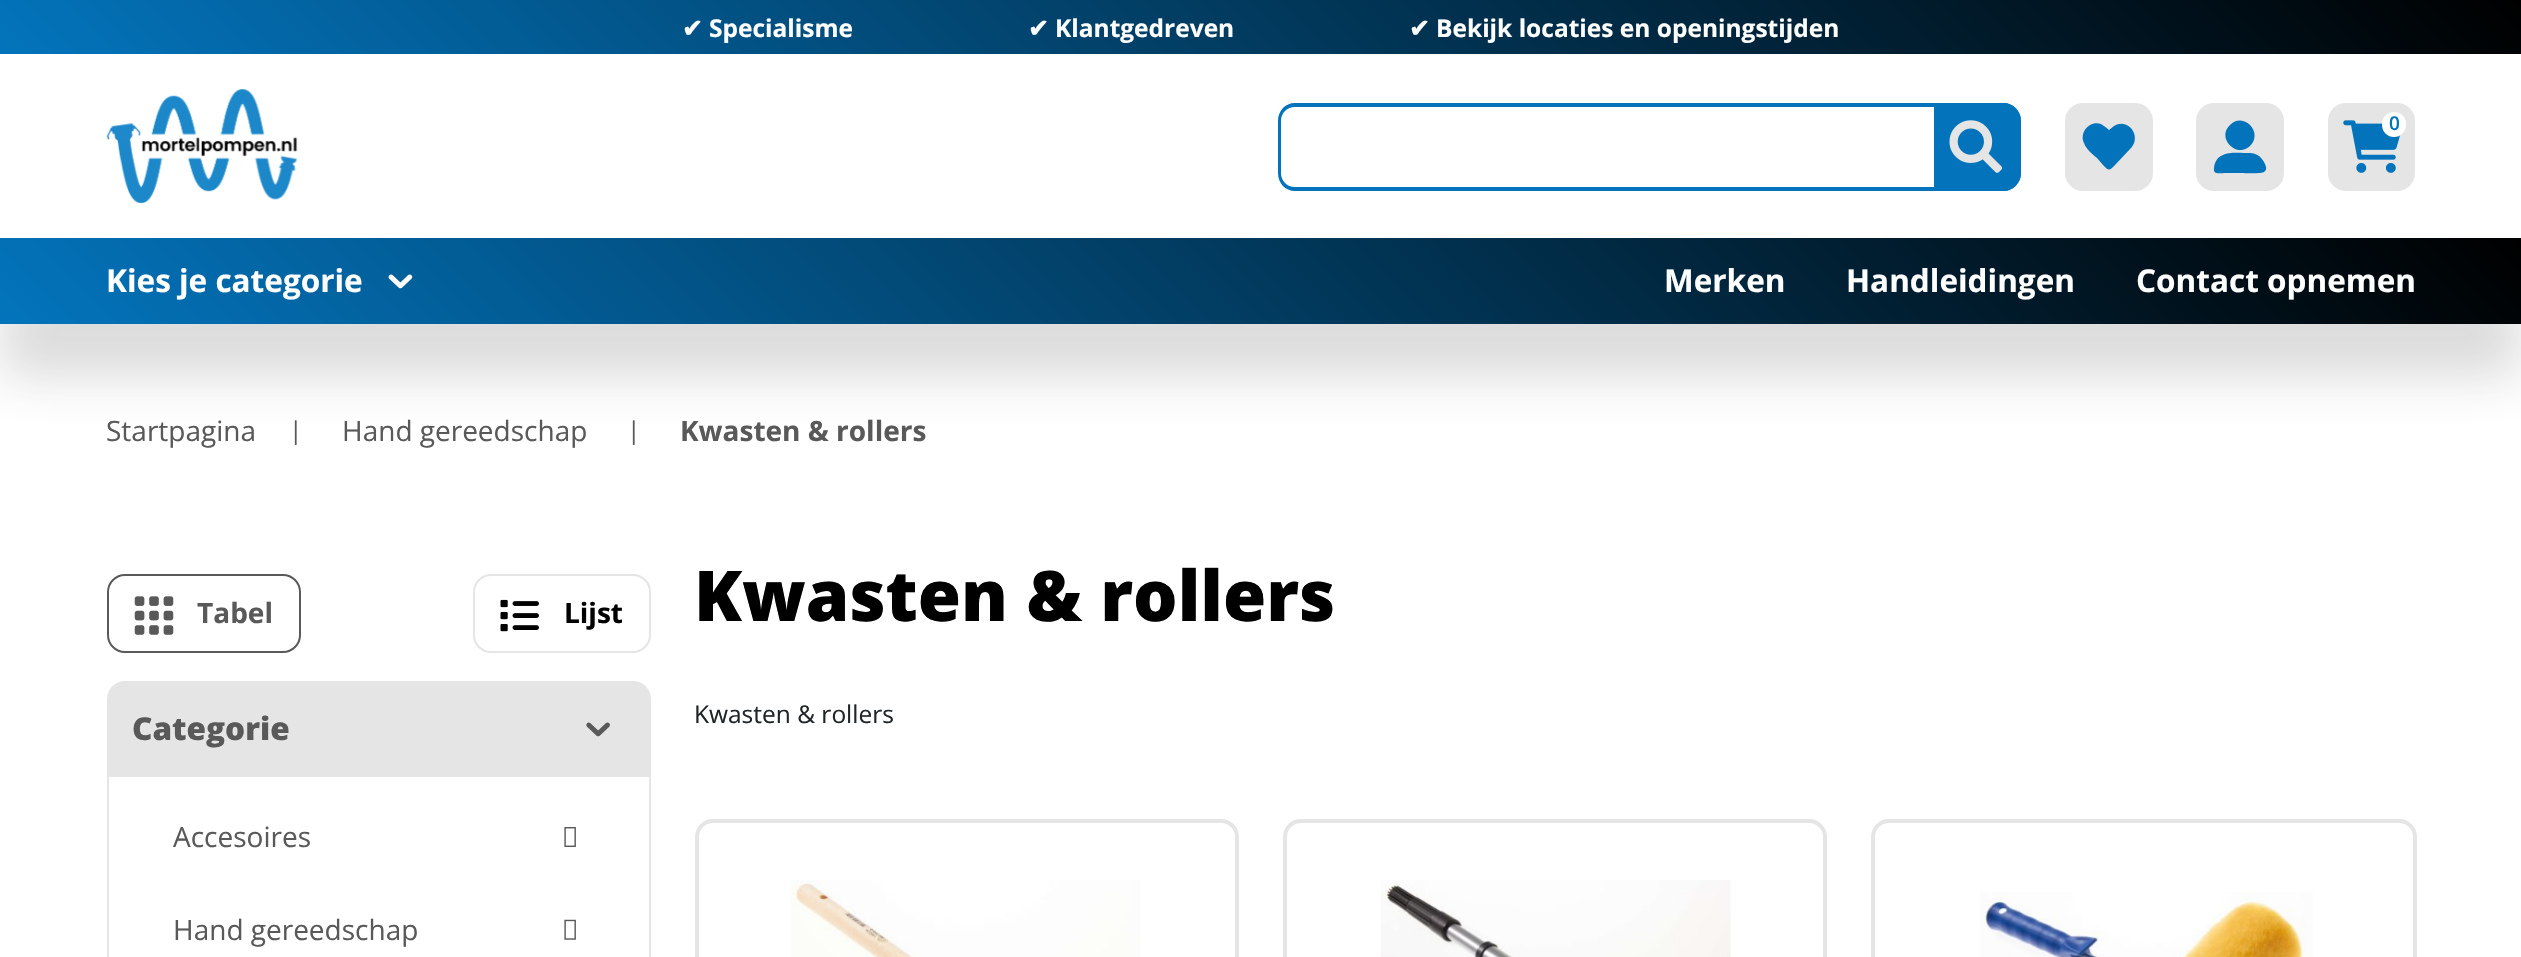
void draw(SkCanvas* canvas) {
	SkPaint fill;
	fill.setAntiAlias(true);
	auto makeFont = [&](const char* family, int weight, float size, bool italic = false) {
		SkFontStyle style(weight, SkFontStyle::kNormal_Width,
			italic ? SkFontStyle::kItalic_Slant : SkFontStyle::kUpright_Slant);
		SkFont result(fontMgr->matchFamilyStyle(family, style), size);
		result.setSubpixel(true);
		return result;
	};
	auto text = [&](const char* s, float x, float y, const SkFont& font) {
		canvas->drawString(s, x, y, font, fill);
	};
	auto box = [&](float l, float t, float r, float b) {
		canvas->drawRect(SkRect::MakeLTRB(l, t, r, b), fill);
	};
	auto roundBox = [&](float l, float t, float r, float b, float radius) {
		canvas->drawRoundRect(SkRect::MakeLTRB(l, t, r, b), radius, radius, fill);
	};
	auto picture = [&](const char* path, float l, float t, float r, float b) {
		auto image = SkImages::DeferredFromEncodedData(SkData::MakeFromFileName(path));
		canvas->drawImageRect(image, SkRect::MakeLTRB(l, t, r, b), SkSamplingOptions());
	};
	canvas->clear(0xFFFFFFFF);
	{
		const SkColor colors[] = {0xFF0374BC, 0xFF000000};
		const float stops[] = {0, 1};
		const SkPoint ends[] = {{617, 671}, {1905, -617}};
		fill.setShader(SkGradientShader::MakeLinear(ends, colors, stops, 2, SkTileMode::kClamp));
		fill.setAlpha(255);
	}
	box(0, 0, 2521, 54);
	picture("image0.png", 106, 89, 298, 203);
	fill.setShader(nullptr);
	fill.setColor(0xFF0374BC);
	canvas->drawPath(SkPathBuilder(SkPathFillType::kEvenOdd).moveTo(1295, 103).lineTo(1934, 103).lineTo(1934, 191).lineTo(1295, 191).cubicTo(1285, 191, 1278, 183, 1278, 173).lineTo(1278, 121).cubicTo(1278, 111, 1285, 103, 1295, 103).close().moveTo(1295, 107).lineTo(1934, 107).lineTo(1934, 187).lineTo(1295, 187).cubicTo(1287, 187, 1281, 181, 1281, 173).lineTo(1281, 121).cubicTo(1281, 113, 1287, 107, 1295, 107).close().detach(), fill);
	canvas->drawPath(SkPathBuilder().moveTo(1934, 103).lineTo(2003, 103).cubicTo(2013, 103, 2021, 111, 2021, 121).lineTo(2021, 173).cubicTo(2021, 183, 2013, 191, 2003, 191).lineTo(1934, 191).close().detach(), fill);
	canvas->drawPath(SkPathBuilder(SkPathFillType::kEvenOdd).moveTo(1934, 103).lineTo(2004, 103).cubicTo(2013, 103, 2021, 111, 2021, 121).lineTo(2021, 173).cubicTo(2021, 183, 2013, 191, 2004, 191).lineTo(1934, 191).close().moveTo(1934, 107).lineTo(2004, 107).cubicTo(2011, 107, 2018, 113, 2018, 121).lineTo(2018, 173).cubicTo(2018, 181, 2011, 187, 2004, 187).lineTo(1934, 187).close().detach(), fill);
	picture("image1.png", 1949, 120, 2002, 173);
	fill.setColor(0xFFE5E5E5);
	roundBox(2065, 103, 2153, 191, 18);
	fill.setColor(0xFF0374BC);
	canvas->drawPath(SkPathBuilder().moveTo(2131, 148).lineTo(2115, 165).cubicTo(2109, 171, 2109, 171, 2103, 165).lineTo(2097, 158).cubicTo(2092, 154, 2086, 149, 2084, 143).cubicTo(2079, 132, 2090, 120, 2101, 124).cubicTo(2104, 126, 2107, 128, 2109, 130).lineTo(2114, 126).cubicTo(2128, 117, 2142, 136, 2131, 148).close().detach(), fill);
	fill.setColor(0xFFE5E5E5);
	roundBox(2196, 103, 2284, 191, 18);
	fill.setColor(0xFF0374BC);
	canvas->drawPath(SkPathBuilder().moveTo(2250, 146).cubicTo(2237, 159, 2216, 138, 2230, 125).cubicTo(2243, 111, 2264, 132, 2250, 146).close().moveTo(2250, 153).cubicTo(2253, 153, 2256, 154, 2259, 156).cubicTo(2262, 158, 2270, 169, 2264, 172).cubicTo(2262, 174, 2244, 173, 2240, 173).lineTo(2225, 173).cubicTo(2219, 173, 2213, 175, 2214, 168).cubicTo(2216, 149, 2237, 153, 2250, 153).close().detach(), fill);
	fill.setColor(0xFFE5E5E5);
	roundBox(2328, 103, 2415, 191, 18);
	picture("image2.png", 2343, 120, 2401, 173);
	fill.setColor(0xFFFFFFFF);
	roundBox(2382, 112, 2406, 137, 12);
	fill.setColor(0x30393939);
	fill.setMaskFilter(SkMaskFilter::MakeBlur(kNormal_SkBlurStyle, 26));
	canvas->drawRect(SkRect::MakeLTRB(0, 291, 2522, 376), fill);
	fill.setMaskFilter(nullptr);
	{
		const SkColor colors[] = {0xFF0374BC, 0xFF000000};
		const float stops[] = {0, 1};
		const SkPoint ends[] = {{609, 933}, {1913, -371}};
		fill.setShader(SkGradientShader::MakeLinear(ends, colors, stops, 2, SkTileMode::kClamp));
		fill.setAlpha(255);
	}
	box(0, 238, 2521, 324);
	picture("image3.png", 388, 274, 413, 289);
	fill.setStyle(SkPaint::kStroke_Style);
	fill.setStrokeWidth(2);
	fill.setShader(nullptr);
	fill.setColor(0xFF595959);
	canvas->drawRoundRect(SkRect::MakeLTRB(108, 575, 300, 652), 17, 17, fill);
	picture("image4.png", 134, 596, 174, 635);
	fill.setColor(0xFFE5E5E5);
	canvas->drawRoundRect(SkRect::MakeLTRB(474, 575, 650, 652), 17, 17, fill);
	picture("image5.png", 500, 599, 539, 632);
	fill.setStyle(SkPaint::kFill_Style);
	canvas->drawPath(SkPathBuilder().moveTo(125, 681).lineTo(633, 681).cubicTo(643, 681, 651, 689, 651, 699).lineTo(651, 775).lineTo(107, 775).lineTo(107, 699).cubicTo(107, 689, 115, 681, 125, 681).close().detach(), fill);
	picture("image6.png", 586, 722, 610, 737);
	fill.setStyle(SkPaint::kStroke_Style);
	canvas->drawRect(SkRect::MakeLTRB(108, 776, 650, 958), fill);
	picture("image7.png", 564, 827, 576, 847);
	picture("image8.png", 564, 919, 576, 940);
	fill.setStrokeWidth(4);
	canvas->drawRoundRect(SkRect::MakeLTRB(697, 821, 1237, 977), 16, 16, fill);
	picture("image9.png", 791, 880, 1141, 957);
	canvas->drawRoundRect(SkRect::MakeLTRB(1285, 821, 1825, 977), 16, 16, fill);
	picture("image10.png", 1381, 880, 1731, 957);
	canvas->drawRoundRect(SkRect::MakeLTRB(1873, 821, 2415, 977), 16, 16, fill);
	picture("image11.png", 1980, 892, 2313, 957);
	auto font1 = makeFont("DejaVu Sans", 700, 24.5f);
	fill.setStyle(SkPaint::kFill_Style);
	fill.setColor(0xFFFFFFFF);
	text("✔", 682, 37, font1);
	auto font2 = makeFont("Open Sans", 700, 24.5f);
	text("Specialisme", 709, 37, font2);
	text("✔", 1028, 37, font1);
	text("Klantgedreven", 1055, 37, font2);
	text("✔", 1409, 37, font1);
	text("Bekijk locaties en openingstijden", 1436, 37, font2);
	auto font3 = makeFont("Open Sans", 600, 19);
	fill.setColor(0xFF0374BC);
	text("0", 2389, 130, font3);
	auto font4 = makeFont("Open Sans", 700, 31.5f);
	fill.setColor(0xFFFFFFFF);
	text("Kies je categorie", 106, 292, font4);
	text("Merken", 1664, 292, font4);
	text("Handleidingen", 1846, 292, font4);
	text("Contact opnemen", 2136, 292, font4);
	auto font5 = makeFont("Open Sans", 400, 28);
	fill.setColor(0xFF595959);
	text("Startpagina", 106, 441, font5);
	auto font6 = makeFont("Open Sans", 400, 24.5f);
	text("|", 289, 439, font6);
	text("Hand gereedschap", 342, 441, font5);
	text("|", 627, 439, font6);
	auto font7 = makeFont("Open Sans", 700, 28);
	text("Kwasten & rollers", 680, 441, font7);
	text("Tabel", 197, 623, font7);
	fill.setColor(0xFF000000);
	text("Lijst", 564, 623, font7);
	auto font8 = makeFont("Open Sans", 800, 31.5f);
	fill.setColor(0xFF595959);
	text("Categorie", 132, 740, font8);
	text("Accesoires", 173, 847, font5);
	text("Hand gereedschap", 173, 940, font5);
	auto font9 = makeFont("Open Sans", 800, 70);
	fill.setColor(0xFF000000);
	text("Kwasten & rollers", 694, 621, font9);
	fill.setColor(0xFF212529);
	text("Kwasten & rollers", 694, 723, font6);
}
